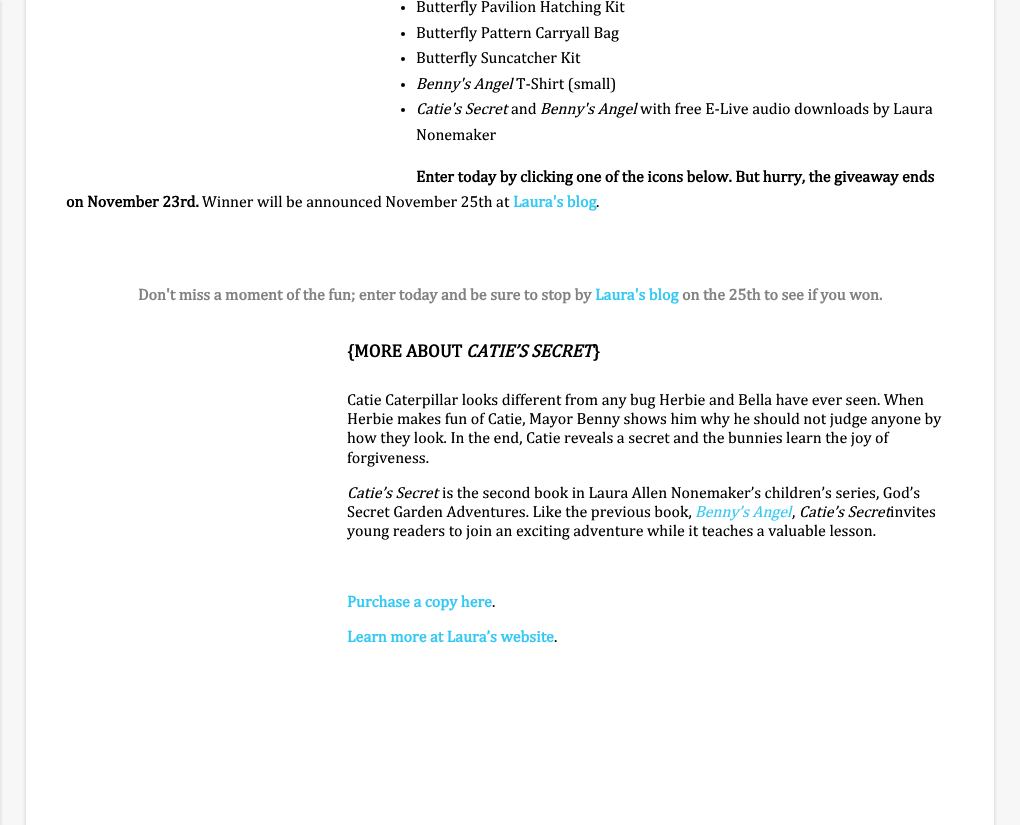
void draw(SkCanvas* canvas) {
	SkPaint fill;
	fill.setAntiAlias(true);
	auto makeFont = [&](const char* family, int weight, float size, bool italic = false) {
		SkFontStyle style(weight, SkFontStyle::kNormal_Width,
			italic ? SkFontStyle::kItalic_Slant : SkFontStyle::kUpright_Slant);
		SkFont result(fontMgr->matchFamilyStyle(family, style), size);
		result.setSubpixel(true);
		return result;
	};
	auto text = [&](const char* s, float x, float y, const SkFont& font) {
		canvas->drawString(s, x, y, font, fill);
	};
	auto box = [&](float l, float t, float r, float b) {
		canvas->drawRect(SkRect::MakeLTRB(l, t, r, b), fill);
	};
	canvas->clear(0xFFF7F7F7);
	fill.setColor(0x1A000000);
	fill.setMaskFilter(SkMaskFilter::MakeBlur(kNormal_SkBlurStyle, 1.5f));
	canvas->drawRect(SkRect::MakeLTRB(-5, 1, 1, 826), fill);
	fill.setMaskFilter(nullptr);
	fill.setColor(0x4D586062);
	fill.setMaskFilter(SkMaskFilter::MakeBlur(kNormal_SkBlurStyle, 2));
	canvas->drawRect(SkRect::MakeLTRB(26, -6, 994, 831), fill);
	fill.setMaskFilter(nullptr);
	fill.setColor(0xFFFFFFFF);
	box(26, 0, 994, 825);
	fill.setColor(0xFF000000);
	canvas->drawCircle(403, 8, 2, fill);
	canvas->drawCircle(403, 34, 2, fill);
	canvas->drawCircle(403, 59, 2, fill);
	canvas->drawCircle(403, 85, 2, fill);
	canvas->drawCircle(403, 110, 2, fill);
	auto font1 = makeFont("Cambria", 400, 16);
	text("Butterfly Pavilion Hatching Kit", 416, 12, font1);
	text("Butterfly Pattern Carryall Bag", 416, 38, font1);
	text("Butterfly Suncatcher Kit", 416, 63, font1);
	auto font2 = makeFont("Cambria", 400, 16, true);
	text("Benny's Angel", 416, 89, font2);
	text("T-Shirt (small)", 516, 89, font1);
	text("Catie's Secret", 416, 114, font2);
	text("and", 511, 114, font1);
	text("Benny's Angel", 540, 114, font2);
	text("with free E-Live audio downloads by Laura", 640, 114, font1);
	text("Nonemaker", 416, 140, font1);
	auto font3 = makeFont("Cambria", 700, 16);
	text("Enter today by clicking one of the icons below. But hurry, the giveaway ends", 416, 182, font3);
	text("on November 23rd.", 66, 207, font3);
	text("Winner will be announced November 25th at", 202, 207, font1);
	fill.setColor(0xFF32C9F4);
	text("Laura's blog", 513, 207, font3);
	fill.setColor(0xFF000000);
	text(".", 596, 207, font1);
	fill.setColor(0xFF818181);
	text("Don't miss a moment of the fun; enter today and be sure to stop by", 138, 300, font3);
	fill.setColor(0xFF32C9F4);
	text("Laura's blog", 595, 300, font3);
	fill.setColor(0xFF818181);
	text("on the 25th to see if you won.", 682, 300, font3);
	auto font4 = makeFont("Cambria", 700, 18);
	fill.setColor(0xFF000000);
	text("{MORE ABOUT", 347, 357, font4);
	auto font5 = makeFont("Cambria", 700, 18, true);
	text("CATIE’S SECRET", 466, 357, font5);
	text("}", 593, 357, font4);
	text("Catie Caterpillar looks different from any bug Herbie and Bella have ever seen. When", 347, 405, font1);
	text("Herbie makes fun of Catie, Mayor Benny shows him why he should not judge anyone by", 347, 424, font1);
	text("how they look. In the end, Catie reveals a secret and the bunnies learn the joy of", 347, 443, font1);
	text("forgiveness.", 347, 463, font1);
	text("Catie’s Secret", 347, 498, font2);
	text("is the second book in Laura Allen Nonemaker’s children’s series, God’s", 442, 498, font1);
	text("Secret Garden Adventures. Like the previous book,", 347, 517, font1);
	fill.setColor(0xFF32C9F4);
	text("Benny’s Angel", 695, 517, font2);
	fill.setColor(0xFF000000);
	text("Catie’s Secret", 799, 517, font2);
	text("invites", 890, 517, font1);
	text(",", 792, 517, font1);
	text("young readers to join an exciting adventure while it teaches a valuable lesson.", 347, 536, font1);
	fill.setColor(0xFF32C9F4);
	text("Purchase a copy here", 347, 607, font3);
	fill.setColor(0xFF000000);
	text(".", 492, 607, font1);
	fill.setColor(0xFF32C9F4);
	text("Learn more at Laura’s website", 347, 642, font3);
	fill.setColor(0xFF000000);
	text(".", 554, 642, font1);
}
